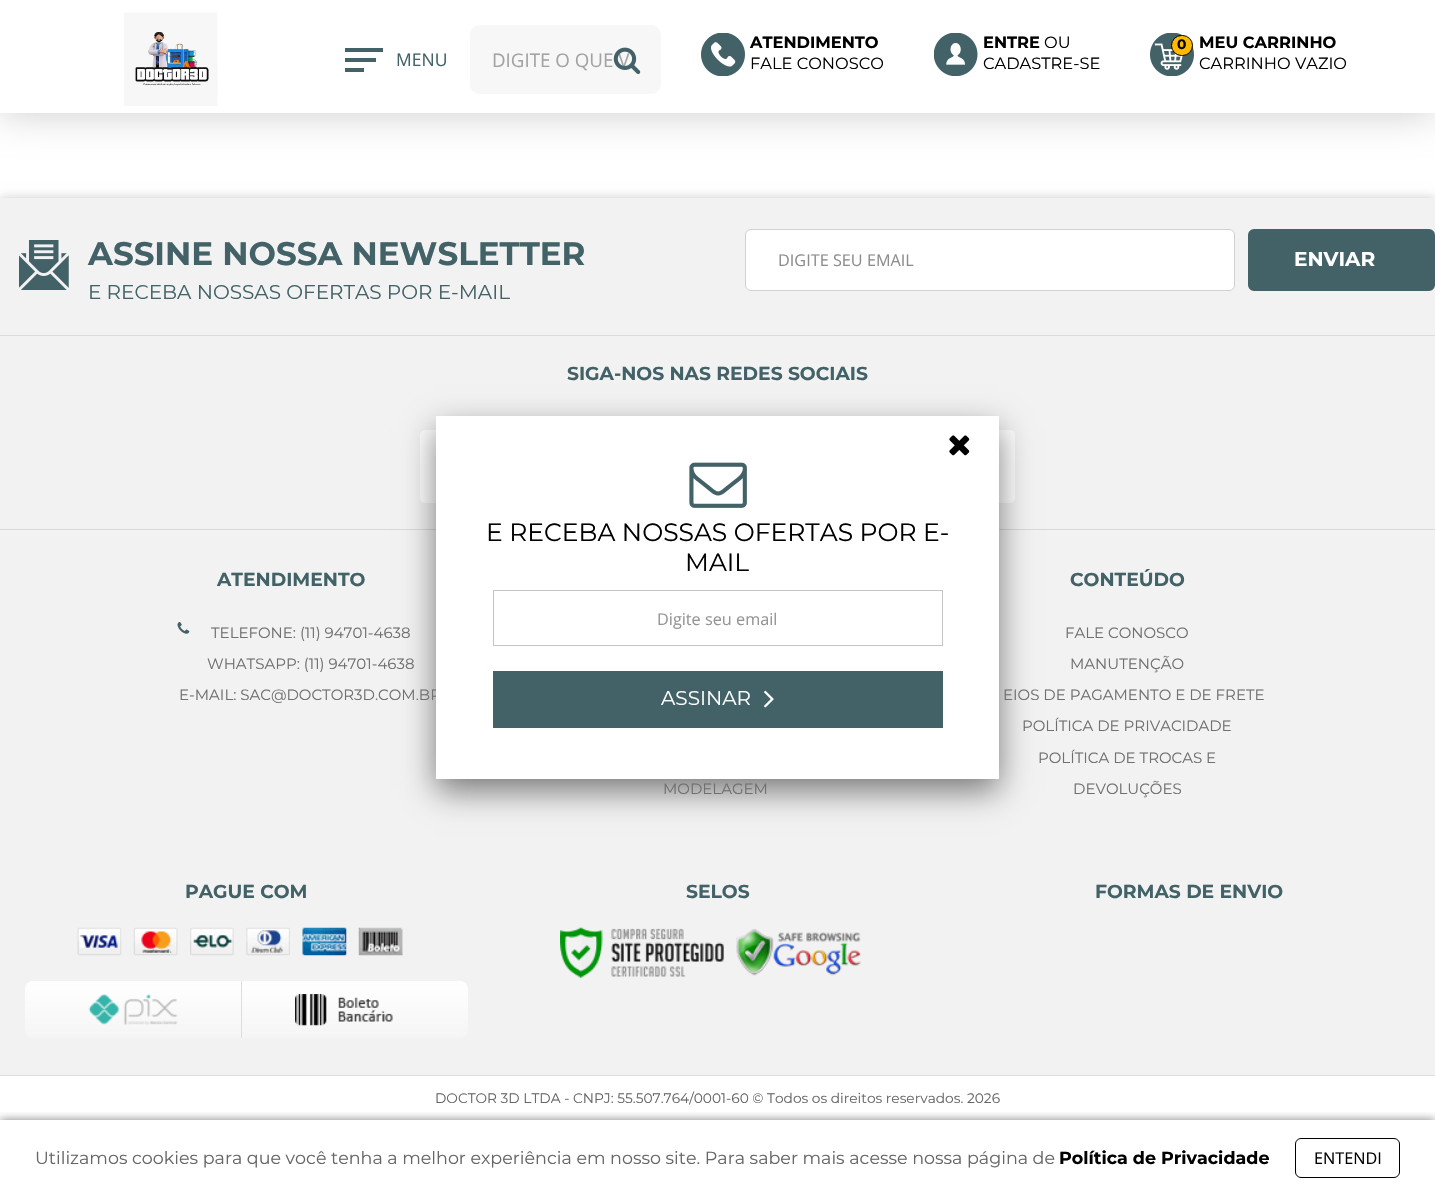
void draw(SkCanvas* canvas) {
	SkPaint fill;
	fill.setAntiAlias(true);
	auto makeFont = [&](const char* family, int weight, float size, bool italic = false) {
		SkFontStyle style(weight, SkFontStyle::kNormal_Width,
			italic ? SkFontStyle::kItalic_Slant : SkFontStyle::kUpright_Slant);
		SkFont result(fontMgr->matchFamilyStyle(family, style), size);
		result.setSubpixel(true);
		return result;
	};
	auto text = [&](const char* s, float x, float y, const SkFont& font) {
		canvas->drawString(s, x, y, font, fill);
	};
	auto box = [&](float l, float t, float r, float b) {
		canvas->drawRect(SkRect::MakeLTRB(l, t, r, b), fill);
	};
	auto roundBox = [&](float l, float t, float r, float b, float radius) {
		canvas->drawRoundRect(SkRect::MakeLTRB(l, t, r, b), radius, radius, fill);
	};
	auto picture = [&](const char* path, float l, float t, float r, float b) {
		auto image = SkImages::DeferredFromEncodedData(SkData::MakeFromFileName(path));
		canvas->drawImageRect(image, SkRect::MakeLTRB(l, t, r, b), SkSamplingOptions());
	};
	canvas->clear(0xFFFFFFFF);
	fill.setColor(0x33000000);
	fill.setMaskFilter(SkMaskFilter::MakeBlur(kNormal_SkBlurStyle, 19));
	canvas->drawRect(SkRect::MakeLTRB(0, 0, 1435, 113), fill);
	fill.setMaskFilter(nullptr);
	fill.setColor(0xFFFFFFFF);
	box(0, 0, 1435, 113);
	picture("image0.png", 124, 12, 218, 106);
	fill.setColor(0xFF426267);
	box(345, 48, 383, 52);
	box(345, 58, 376, 62);
	box(345, 68, 364, 72);
	fill.setColor(0xFFF7F7F7);
	roundBox(470, 25, 661, 94, 10);
	picture("image2.png", 701, 33, 745, 76);
	picture("image3.png", 934, 33, 978, 76);
	picture("image4.png", 1150, 33, 1194, 76);
	fill.setColor(0xFFFFBA00);
	canvas->drawRoundRect(SkRect::MakeLTRB(1171.5f, 35.5f, 1192.5f, 55.5f), 10, 10, fill);
	fill.setStyle(SkPaint::kStroke_Style);
	fill.setStrokeWidth(1);
	fill.setColor(0xFF000000);
	canvas->drawRoundRect(SkRect::MakeLTRB(1171.5f, 35.5f, 1192.5f, 55.5f), 10, 10, fill);
	fill.setStyle(SkPaint::kFill_Style);
	fill.setColor(0x33000000);
	fill.setMaskFilter(SkMaskFilter::MakeBlur(kNormal_SkBlurStyle, 5));
	canvas->drawRect(SkRect::MakeLTRB(0, 198, 1435, 335), fill);
	fill.setMaskFilter(nullptr);
	fill.setColor(0xFFF2F2F2);
	box(0, 198, 1435, 335);
	picture("image5.png", 19, 240, 69, 290);
	fill.setColor(0xFFFFFFFF);
	canvas->drawRoundRect(SkRect::MakeLTRB(745.5f, 229.5f, 1234.5f, 290.5f), 5.5f, 5.5f, fill);
	fill.setStyle(SkPaint::kStroke_Style);
	fill.setColor(0xFFD1D1D1);
	canvas->drawRoundRect(SkRect::MakeLTRB(745.5f, 229.5f, 1234.5f, 290.5f), 5.5f, 5.5f, fill);
	fill.setStyle(SkPaint::kFill_Style);
	fill.setColor(0xFF426267);
	canvas->drawRoundRect(SkRect::MakeLTRB(1249.5f, 230.5f, 1433.5f, 289.5f), 4.5f, 4.5f, fill);
	fill.setStyle(SkPaint::kStroke_Style);
	fill.setStrokeWidth(3);
	canvas->drawRoundRect(SkRect::MakeLTRB(1249.5f, 230.5f, 1433.5f, 289.5f), 4.5f, 4.5f, fill);
	fill.setStyle(SkPaint::kFill_Style);
	fill.setColor(0xFFDBDBDB);
	box(0, 335, 1435, 336);
	fill.setColor(0xFFF2F2F2);
	box(0, 336, 1435, 1075);
	fill.setColor(0xFFD8D9DA);
	box(0, 529, 1435, 530);
	fill.setColor(0xFFFFFFFF);
	canvas->drawRoundRect(SkRect::MakeLTRB(419.5f, 429.5f, 493.5f, 503.5f), 5.5f, 5.5f, fill);
	fill.setStyle(SkPaint::kStroke_Style);
	fill.setStrokeWidth(1);
	fill.setColor(0xFFF2F2F2);
	canvas->drawRoundRect(SkRect::MakeLTRB(419.5f, 429.5f, 493.5f, 503.5f), 5.5f, 5.5f, fill);
	fill.setStyle(SkPaint::kFill_Style);
	fill.setColor(0xFFFFFFFF);
	canvas->drawRoundRect(SkRect::MakeLTRB(941.5f, 429.5f, 1015.5f, 503.5f), 5.5f, 5.5f, fill);
	fill.setStyle(SkPaint::kStroke_Style);
	fill.setColor(0xFFF2F2F2);
	canvas->drawRoundRect(SkRect::MakeLTRB(941.5f, 429.5f, 1015.5f, 503.5f), 5.5f, 5.5f, fill);
	picture("image6.png", 177, 622, 190, 634);
	picture("image7.png", 77, 927, 122, 956);
	picture("image8.png", 133, 927, 178, 956);
	picture("image9.png", 190, 927, 234, 956);
	picture("image10.png", 246, 927, 290, 956);
	picture("image11.png", 302, 927, 347, 956);
	picture("image12.png", 358, 927, 403, 956);
	fill.setStyle(SkPaint::kFill_Style);
	{
		const SkColor colors[] = {0xFFFFFFFF, 0xFFF5F5F5};
		const float stops[] = {0, 1};
		const SkPoint ends[] = {{246, 981}, {246, 1038}};
		fill.setShader(SkGradientShader::MakeLinear(ends, colors, stops, 2, SkTileMode::kClamp));
		fill.setAlpha(255);
	}
	roundBox(25, 981, 468, 1038, 8);
	picture("image13.png", 88, 994, 178, 1025);
	fill.setShader(nullptr);
	fill.setColor(0xFFDDDDDD);
	box(241, 981, 242, 1038);
	picture("image14.png", 295, 994, 393, 1026);
	picture("image15.png", 560, 927, 724, 978);
	picture("image16.png", 736, 929, 861, 976);
	box(0, 1075, 1435, 1076);
	fill.setColor(0x80000000);
	fill.setMaskFilter(SkMaskFilter::MakeBlur(kNormal_SkBlurStyle, 15.5f));
	canvas->drawRect(SkRect::MakeLTRB(436, 429, 999, 791), fill);
	fill.setMaskFilter(nullptr);
	canvas->save();
	canvas->clipRect(SkRect::MakeLTRB(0, 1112, 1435, 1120));
	fill.setMaskFilter(SkMaskFilter::MakeBlur(kNormal_SkBlurStyle, 4.5f));
	canvas->drawRect(SkRect::MakeLTRB(0, 1120, 1435, 1195), fill);
	fill.setMaskFilter(nullptr);
	canvas->restore();
	fill.setStyle(SkPaint::kStroke_Style);
	fill.setColor(0xFF000000);
	canvas->drawRoundRect(SkRect::MakeLTRB(1295.5f, 1138.5f, 1399.5f, 1177.5f), 5.5f, 5.5f, fill);
	auto font1 = makeFont("Open Sans", 400, 17.5f);
	fill.setStyle(SkPaint::kFill_Style);
	fill.setColor(0xFF426267);
	text("MENU", 396, 66, font1);
	auto font2 = makeFont("Open Sans", 400, 18.75f);
	fill.setColor(0xFFA3A3A3);
	text("DIGITE O QUE V", 492, 67, font2);
	picture("image1.png", 613, 47, 641, 75);
	auto font3 = makeFont("Montserrat", 700, 16.25f);
	fill.setColor(0xFF000000);
	text("ATENDIMENTO", 750, 48, font3);
	auto font4 = makeFont("Montserrat", 400, 16.25f);
	text("FALE CONOSCO", 750, 69, font4);
	text("ENTRE", 983, 48, font3);
	text("OU", 1044, 48, font4);
	text("CADASTRE-SE", 983, 69, font4);
	text("MEU CARRINHO", 1199, 48, font3);
	auto font5 = makeFont("Montserrat", 700, 13.75f);
	text("0", 1177, 49, font5);
	text("CARRINHO VAZIO", 1199, 69, font4);
	auto font6 = makeFont("Montserrat", 700, 32.5f);
	fill.setColor(0xFF426267);
	text("ASSINE NOSSA NEWSLETTER", 88, 265, font6);
	auto font7 = makeFont("Open Sans", 400, 16.25f);
	fill.setColor(0xFF8D8D8D);
	text("DIGITE SEU EMAIL", 778, 266, font7);
	auto font8 = makeFont("Montserrat", 700, 20);
	fill.setColor(0xFFFFFFFF);
	text("ENVIAR", 1294, 266, font8);
	auto font9 = makeFont("Montserrat", 400, 20);
	fill.setColor(0xFF426267);
	text("E RECEBA NOSSAS OFERTAS POR E-MAIL", 88, 299, font9);
	auto font10 = makeFont("Montserrat", 700, 18.75f);
	text("SIGA-NOS NAS REDES SOCIAIS", 567, 380, font10);
	text("ATENDIMENTO", 217, 586, font10);
	auto font11 = makeFont("Montserrat", 400, 15);
	fill.setColor(0xFF707070);
	text("TELEFONE: (11) 94701-4638", 211, 638, font11);
	text("WHATSAPP: (11) 94701-4638", 207, 669, font11);
	text("E-MAIL: SAC@DOCTOR3D.COM.BR", 179, 700, font11);
	fill.setColor(0xFF426267);
	text("CONTEÚDO", 1070, 586, font10);
	fill.setColor(0xFF707070);
	text("FALE CONOSCO", 1065, 638, font11);
	text("MANUTENÇÃO", 1070, 669, font11);
	text("EIOS DE PAGAMENTO E DE FRETE", 1003, 700, font11);
	text("POLÍTICA DE PRIVACIDADE", 1022, 731, font11);
	text("POLÍTICA DE TROCAS E", 1038, 763, font11);
	text("DEVOLUÇÕES", 1073, 794, font11);
	text("MODELAGEM", 663, 794, font11);
	fill.setColor(0xFF426267);
	text("PAGUE COM", 185, 898, font10);
	text("SELOS", 686, 898, font10);
	text("FORMAS DE ENVIO", 1095, 898, font10);
	auto font12 = makeFont("Montserrat", 400, 13.75f);
	fill.setColor(0xFF666666);
	text("DOCTOR 3D LTDA - CNPJ: 55.507.764/0001-60 © Todos os direitos reservados. 2026", 435, 1103, font12);
	fill.setColor(0xFFFFFFFF);
	box(436, 416, 999, 779);
	picture("image17.png", 949, 435, 970, 456);
	picture("image18.png", 689, 462, 747, 508);
	auto font13 = makeFont("Montserrat", 400, 25);
	fill.setColor(0xFF000000);
	text("E RECEBA NOSSAS OFERTAS POR E-", 486, 541, font13);
	text("MAIL", 685, 571, font13);
	fill.setStyle(SkPaint::kStroke_Style);
	fill.setColor(0xFFC4C4C4);
	canvas->drawRect(SkRect::MakeLTRB(493.5f, 590.5f, 942.5f, 645.5f), fill);
	fill.setStyle(SkPaint::kFill_Style);
	fill.setColor(0xFF959595);
	text("Digite seu email", 657, 625, font7);
	fill.setColor(0xFF426267);
	box(493, 671, 943, 728);
	fill.setColor(0xFFFFFFFF);
	text("ASSINAR", 661, 705, font9);
	picture("image19.png", 764, 690, 774, 708);
	auto font14 = makeFont("Montserrat", 400, 17.5f);
	fill.setColor(0xFF666666);
	text("Utilizamos cookies para que você tenha a melhor experiência em nosso site. Para saber mais acesse nossa página de", 35, 1164, font14);
	auto font15 = makeFont("Montserrat", 700, 17.5f);
	fill.setColor(0xFF000000);
	text("Política de Privacidade", 1059, 1164, font15);
	text("ENTENDI", 1314, 1164, font7);
}
